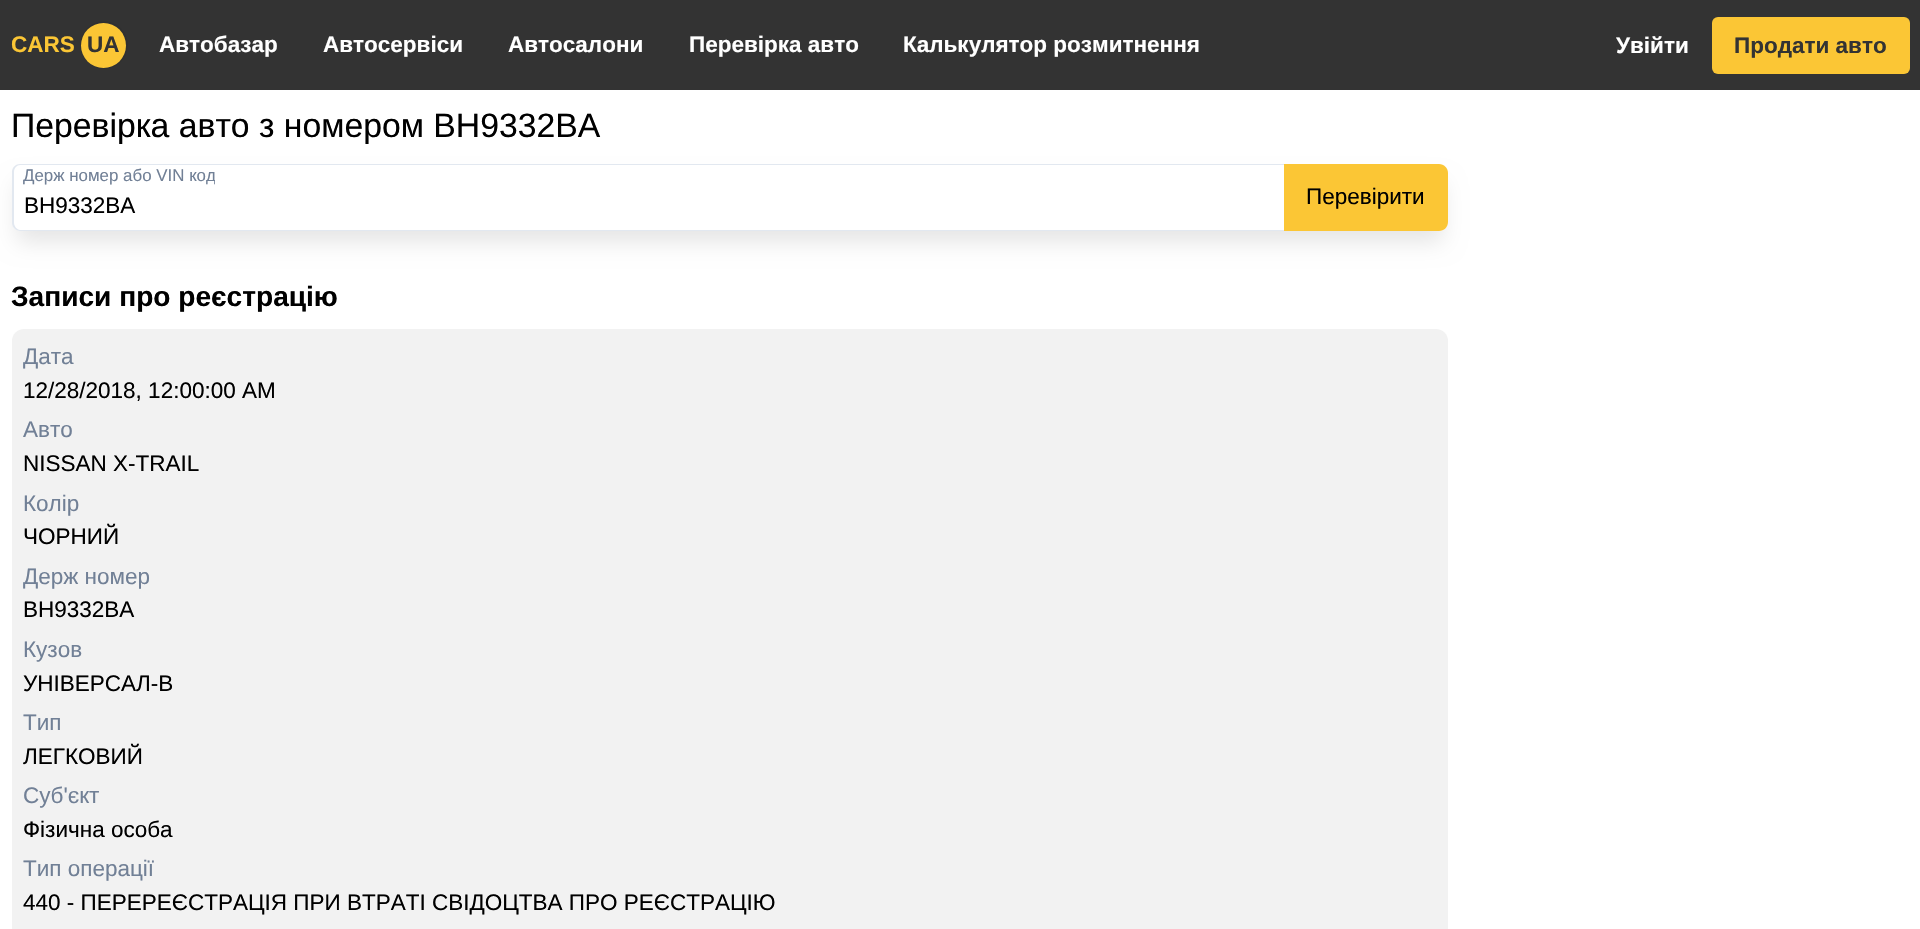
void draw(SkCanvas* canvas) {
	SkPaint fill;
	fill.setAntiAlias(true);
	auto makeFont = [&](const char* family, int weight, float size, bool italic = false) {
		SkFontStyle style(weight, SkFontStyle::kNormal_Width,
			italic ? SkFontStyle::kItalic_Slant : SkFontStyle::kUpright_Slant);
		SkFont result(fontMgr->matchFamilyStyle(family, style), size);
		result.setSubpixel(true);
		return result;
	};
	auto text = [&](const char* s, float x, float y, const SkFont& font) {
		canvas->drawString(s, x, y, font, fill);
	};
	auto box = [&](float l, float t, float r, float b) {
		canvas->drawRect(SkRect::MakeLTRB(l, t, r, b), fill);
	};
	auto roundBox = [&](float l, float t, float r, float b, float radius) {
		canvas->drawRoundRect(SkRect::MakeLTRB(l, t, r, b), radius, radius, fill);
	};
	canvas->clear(0xFFFFFFFF);
	fill.setColor(0xFF333333);
	box(0, 0, 1920, 90);
	fill.setStyle(SkPaint::kStroke_Style);
	fill.setStrokeWidth(2);
	fill.setColor(0xFF303030);
	canvas->drawCircle(104, 45, 23, fill);
	fill.setStyle(SkPaint::kFill_Style);
	fill.setColor(0xFFFBC635);
	canvas->drawCircle(103.5f, 45.5f, 22.5f, fill);
	roundBox(1712, 17, 1910, 74, 6);
	canvas->save();
	canvas->clipPath(SkPathBuilder(SkPathFillType::kEvenOdd).moveTo(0, 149).lineTo(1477, 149).lineTo(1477, 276).lineTo(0, 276).close().moveTo(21, 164).lineTo(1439, 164).cubicTo(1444, 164, 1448, 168, 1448, 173).lineTo(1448, 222).cubicTo(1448, 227, 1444, 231, 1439, 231).lineTo(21, 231).cubicTo(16, 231, 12, 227, 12, 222).lineTo(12, 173).cubicTo(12, 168, 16, 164, 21, 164).close().detach(), true);
	fill.setColor(0x1A000000);
	fill.setMaskFilter(SkMaskFilter::MakeBlur(kNormal_SkBlurStyle, 11));
	canvas->drawRoundRect(SkRect::MakeLTRB(17, 183, 1443, 242), 4, 4, fill);
	fill.setMaskFilter(nullptr);
	canvas->restore();
	fill.setColor(0xFFE2E8F0);
	canvas->drawPath(SkPathBuilder(SkPathFillType::kEvenOdd).moveTo(20, 164).lineTo(1284, 164).lineTo(1284, 231).lineTo(20, 231).cubicTo(16, 231, 12, 227, 12, 223).lineTo(12, 172).cubicTo(12, 167, 16, 164, 20, 164).close().moveTo(20, 165).lineTo(1284, 165).lineTo(1284, 230).lineTo(20, 230).cubicTo(17, 230, 14, 226, 14, 223).lineTo(14, 172).cubicTo(14, 168, 17, 165, 20, 165).close().detach(), fill);
	fill.setColor(0xFFFBC635);
	canvas->drawPath(SkPathBuilder().moveTo(1284, 164).lineTo(1439, 164).cubicTo(1444, 164, 1448, 168, 1448, 173).lineTo(1448, 222).cubicTo(1448, 227, 1444, 231, 1439, 231).lineTo(1284, 231).close().detach(), fill);
	fill.setColor(0xFFF2F2F2);
	roundBox(12, 329, 1448, 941, 12);
	auto font1 = makeFont("Liberation Sans", 700, 22.5f);
	fill.setColor(0xFFFBC635);
	text("CARS", 11, 52, font1);
	fill.setColor(0xFF333333);
	text("UA", 87, 52, font1);
	fill.setColor(0xFFFFFFFF);
	text("Автобазар", 159, 52, font1);
	text("Автосервіси", 323, 52, font1);
	text("Автосалони", 508, 52, font1);
	text("Перевірка авто", 689, 52, font1);
	text("Калькулятор розмитнення", 903, 52, font1);
	text("Увійти", 1616, 53, font1);
	fill.setColor(0xFF333333);
	text("Продати авто", 1734, 53, font1);
	auto font2 = makeFont("Liberation Sans", 400, 33.75f);
	fill.setColor(0xFF000000);
	text("Перевірка авто з номером ВН9332ВА", 11, 137, font2);
	canvas->save();
	canvas->clipRect(SkRect::MakeLTRB(23, 164, 215, 189));
	auto font3 = makeFont("Liberation Sans", 400, 16.9f);
	fill.setColor(0xFF718096);
	text("Держ номер або VIN код", 23, 181, font3);
	canvas->restore();
	auto font4 = makeFont("Liberation Sans", 400, 22.5f);
	fill.setColor(0xFF000000);
	text("BH9332BA", 24, 213, font4);
	text("Перевірити", 1306, 204, font4);
	auto font5 = makeFont("Liberation Sans", 700, 28.1f);
	text("Записи про реєстрацію", 11, 306, font5);
	fill.setColor(0xFF718096);
	text("Дата", 23, 364, font4);
	fill.setColor(0xFF000000);
	text("12/28/2018, 12:00:00 AM", 23, 398, font4);
	fill.setColor(0xFF718096);
	text("Авто", 23, 437, font4);
	fill.setColor(0xFF000000);
	text("NISSAN X-TRAIL", 23, 471, font4);
	fill.setColor(0xFF718096);
	text("Колір", 23, 511, font4);
	fill.setColor(0xFF000000);
	text("ЧОРНИЙ", 23, 544, font4);
	fill.setColor(0xFF718096);
	text("Держ номер", 23, 584, font4);
	fill.setColor(0xFF000000);
	text("BH9332BA", 23, 617, font4);
	fill.setColor(0xFF718096);
	text("Кузов", 23, 657, font4);
	fill.setColor(0xFF000000);
	text("УНІВЕРСАЛ-B", 23, 691, font4);
	fill.setColor(0xFF718096);
	text("Тип", 23, 730, font4);
	fill.setColor(0xFF000000);
	text("ЛЕГКОВИЙ", 23, 764, font4);
	fill.setColor(0xFF718096);
	text("Суб'єкт", 23, 803, font4);
	fill.setColor(0xFF000000);
	text("Фізична особа", 23, 837, font4);
	fill.setColor(0xFF718096);
	text("Тип операції", 23, 876, font4);
	fill.setColor(0xFF000000);
	text("440 - ПЕРЕРЕЄСТРАЦIЯ ПРИ ВТРАТІ СВIДОЦТВА ПРО РЕЄСТРАЦIЮ", 23, 910, font4);
}
